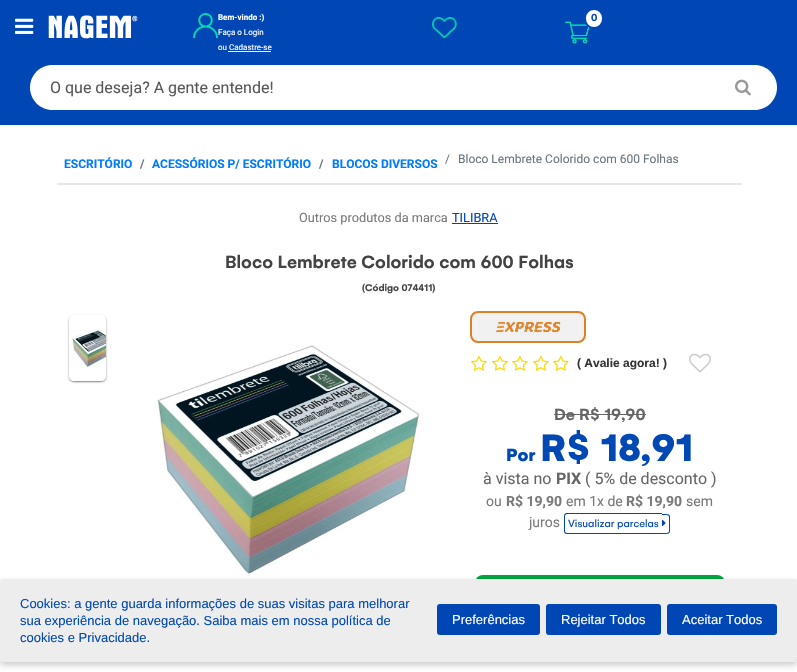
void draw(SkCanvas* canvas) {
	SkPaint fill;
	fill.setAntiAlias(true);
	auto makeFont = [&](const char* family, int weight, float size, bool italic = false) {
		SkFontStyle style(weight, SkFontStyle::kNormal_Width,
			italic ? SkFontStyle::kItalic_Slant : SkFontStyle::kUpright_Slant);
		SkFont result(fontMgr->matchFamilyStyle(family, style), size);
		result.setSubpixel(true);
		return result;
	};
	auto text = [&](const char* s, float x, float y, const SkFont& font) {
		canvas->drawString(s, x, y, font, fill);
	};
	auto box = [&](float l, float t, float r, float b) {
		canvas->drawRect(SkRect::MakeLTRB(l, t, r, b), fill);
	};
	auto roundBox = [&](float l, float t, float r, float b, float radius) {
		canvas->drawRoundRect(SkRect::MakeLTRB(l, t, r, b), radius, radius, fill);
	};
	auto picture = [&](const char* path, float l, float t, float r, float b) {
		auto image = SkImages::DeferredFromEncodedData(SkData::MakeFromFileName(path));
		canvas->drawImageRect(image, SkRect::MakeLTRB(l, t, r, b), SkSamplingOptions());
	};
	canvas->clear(0xFFFFFFFF);
	fill.setColor(0xFF0046B4);
	box(0, 0, 797, 125);
	picture("image0.png", 15, 18, 34, 34);
	picture("image1.png", 48, 15, 138, 39);
	picture("image2.png", 193, 13, 218, 38);
	fill.setColor(0xFFFFFFFF);
	box(228, 51, 271, 52);
	picture("image3.png", 432, 17, 457, 39);
	picture("image4.png", 565, 21, 590, 44);
	canvas->drawRoundRect(SkRect::MakeLTRB(585, 9, 603, 28), 9, 9, fill);
	fill.setStyle(SkPaint::kStroke_Style);
	fill.setStrokeWidth(2);
	fill.setColor(0xFF0046B4);
	canvas->drawRoundRect(SkRect::MakeLTRB(585, 9, 603, 28), 9, 9, fill);
	fill.setStyle(SkPaint::kFill_Style);
	fill.setColor(0xFFFFFFFF);
	canvas->drawPath(SkPathBuilder().moveTo(52.5f, 65).lineTo(728, 65).lineTo(728, 110).lineTo(52.5f, 110).cubicTo(40, 110, 30, 100, 30, 87.5f).cubicTo(30, 75, 40, 65, 52.5f, 65).close().detach(), fill);
	canvas->drawPath(SkPathBuilder().moveTo(718, 65).lineTo(754.5f, 65).cubicTo(767, 65, 777, 75, 777, 87.5f).cubicTo(777, 100, 767, 110, 754.5f, 110).lineTo(718, 110).close().detach(), fill);
	picture("image5.png", 735, 79, 751, 96);
	fill.setColor(0xFFE6E6E6);
	box(57, 183, 742, 185);
	fill.setColor(0xFF0046B4);
	box(452, 223, 498, 224);
	canvas->save();
	canvas->clipPath(SkPathBuilder(SkPathFillType::kEvenOdd).moveTo(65, 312).lineTo(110, 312).lineTo(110, 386).lineTo(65, 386).close().moveTo(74, 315).lineTo(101, 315).cubicTo(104, 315, 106, 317, 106, 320).lineTo(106, 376).cubicTo(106, 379, 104, 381, 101, 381).lineTo(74, 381).cubicTo(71, 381, 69, 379, 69, 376).lineTo(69, 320).cubicTo(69, 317, 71, 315, 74, 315).close().detach(), true);
	fill.setColor(0x80000000);
	fill.setMaskFilter(SkMaskFilter::MakeBlur(kNormal_SkBlurStyle, 1));
	canvas->drawRoundRect(SkRect::MakeLTRB(69, 316, 106, 382), 5, 5, fill);
	fill.setMaskFilter(nullptr);
	canvas->restore();
	picture("image6.png", 69, 328, 106, 367);
	picture("image7.png", 157, 345, 420, 574);
	fill.setColor(0xFFF1F1F1);
	canvas->drawRoundRect(SkRect::MakeLTRB(471, 312, 585, 342), 7, 7, fill);
	fill.setStyle(SkPaint::kStroke_Style);
	fill.setColor(0xFFDE8025);
	canvas->drawRoundRect(SkRect::MakeLTRB(471, 312, 585, 342), 7, 7, fill);
	picture("image8.png", 496, 322, 561, 332);
	picture("image9.png", 471, 355, 487, 371);
	picture("image9.png", 492, 355, 508, 371);
	picture("image9.png", 512, 355, 528, 371);
	picture("image9.png", 533, 355, 549, 371);
	picture("image9.png", 553, 355, 569, 371);
	picture("image10.png", 689, 353, 711, 373);
	fill.setStyle(SkPaint::kFill_Style);
	fill.setColor(0xFF666666);
	box(554, 414, 646, 415);
	fill.setColor(0xFF0046B4);
	canvas->drawPath(SkPathBuilder(SkPathFillType::kEvenOdd).moveTo(567, 513).lineTo(662, 513).lineTo(662, 534).lineTo(567, 534).cubicTo(565, 534, 564, 533, 564, 531).lineTo(564, 516).cubicTo(564, 514, 565, 513, 567, 513).close().moveTo(567, 514).lineTo(662, 514).lineTo(662, 533).lineTo(567, 533).cubicTo(566, 533, 565, 532, 565, 531).lineTo(565, 516).cubicTo(565, 515, 566, 514, 567, 514).close().detach(), fill);
	canvas->drawPath(SkPathBuilder(SkPathFillType::kEvenOdd).moveTo(662, 514).cubicTo(671.5f, 514, 670, 514, 670, 524).cubicTo(670, 534, 671.5f, 534, 662, 534).close().moveTo(662, 515).cubicTo(670.5f, 515, 669, 514.5f, 669, 524).cubicTo(669, 533.5f, 670.5f, 533, 662, 533).close().detach(), fill);
	picture("image11.png", 662, 519, 666, 527);
	fill.setColor(0xFF00A541);
	roundBox(475, 575, 725, 635, 8);
	fill.setColor(0x33000000);
	fill.setMaskFilter(SkMaskFilter::MakeBlur(kNormal_SkBlurStyle, 3));
	canvas->drawRoundRect(SkRect::MakeLTRB(0, 582, 797, 665), 3, 3, fill);
	fill.setMaskFilter(nullptr);
	fill.setColor(0xFFEDEDEE);
	roundBox(0, 579, 797, 662, 3);
	fill.setColor(0xFF0046B4);
	roundBox(437, 604, 540, 635, 3);
	roundBox(546, 604, 661, 635, 3);
	roundBox(667, 604, 777, 635, 3);
	auto font1 = makeFont("Roboto", 700, 8);
	fill.setColor(0xFFFFFFFF);
	text("Bem-vindo :)", 218, 20, font1);
	auto font2 = makeFont("Roboto", 400, 8);
	text("Faça o Login", 218, 35, font2);
	text("ou Cadastre-se", 218, 50, font2);
	auto font3 = makeFont("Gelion", 600, 11);
	fill.setColor(0xFF0048B3);
	text("0", 591, 21, font3);
	auto font4 = makeFont("Roboto", 400, 16);
	fill.setColor(0xFF585858);
	text("O que deseja? A gente entende!", 50, 93, font4);
	auto font5 = makeFont("Roboto", 700, 12);
	fill.setColor(0xFF007BFF);
	text("ESCRITÓRIO", 64, 168, font5);
	fill.setColor(0xFF6C757D);
	text("/", 140, 168, font5);
	fill.setColor(0xFF007BFF);
	text("ACESSÓRIOS P/ ESCRITÓRIO", 152, 168, font5);
	fill.setColor(0xFF6C757D);
	text("/", 319, 168, font5);
	fill.setColor(0xFF007BFF);
	text("BLOCOS DIVERSOS", 332, 168, font5);
	auto font6 = makeFont("Roboto", 400, 12);
	fill.setColor(0xFF6C757D);
	text("/", 445, 163, font6);
	text("Bloco Lembrete Colorido com 600 Folhas", 458, 163, font6);
	auto font7 = makeFont("Roboto", 400, 12.75f);
	fill.setColor(0xFF797979);
	text("Outros produtos da marca", 299, 222, font7);
	fill.setColor(0xFF0048B3);
	text("TILIBRA", 452, 222, font7);
	auto font8 = makeFont("Gelion", 600, 19.25f);
	fill.setColor(0xFF434343);
	text("Bloco Lembrete Colorido com 600 Folhas", 225, 268, font8);
	auto font9 = makeFont("Gelion", 600, 10.5f);
	text("(Código 074411)", 362, 291, font9);
	auto font10 = makeFont("Liberation Sans", 700, 12);
	fill.setColor(0xFF333333);
	text("( Avalie agora! )", 577, 367, font10);
	auto font11 = makeFont("Gelion", 600, 17.5f);
	fill.setColor(0xFF666666);
	text("De R$ 19,90", 554, 420, font11);
	auto font12 = makeFont("Gelion", 900, 19.25f);
	fill.setColor(0xFF0048B3);
	text("Por", 506, 461, font12);
	auto font13 = makeFont("Gelion", 900, 41.5f);
	text("R$ 18,91", 540, 461, font13);
	fill.setColor(0xFF666666);
	text("à vista no", 483, 484, font4);
	auto font14 = makeFont("Roboto", 700, 16);
	text("PIX", 556, 484, font14);
	text("( 5% de desconto )", 585, 484, font4);
	auto font15 = makeFont("Roboto", 400, 14);
	fill.setColor(0xFF797979);
	text("ou", 486, 506, font15);
	auto font16 = makeFont("Roboto", 700, 14);
	text("R$ 19,90", 506, 506, font16);
	text("em 1x de", 566, 506, font15);
	text("R$ 19,90", 626, 506, font16);
	text("sem", 686, 506, font15);
	text("juros", 529, 527, font15);
	auto font17 = makeFont("Gelion", 400, 11.25f);
	fill.setColor(0xFF0048B3);
	text("Visualizar parcelas", 568, 527, font17);
	auto font18 = makeFont("Liberation Sans", 400, 13);
	text("Cookies: a gente guarda informações de suas visitas para melhorar", 20, 608, font18);
	text("sua experiência de navegação. Saiba mais em nossa política de", 20, 625, font18);
	text("cookies e Privacidade.", 20, 642, font18);
	fill.setColor(0xFFFFFFFF);
	text("Preferências", 452, 624, font18);
	text("Rejeitar Todos", 561, 624, font18);
	text("Aceitar Todos", 682, 624, font18);
}
